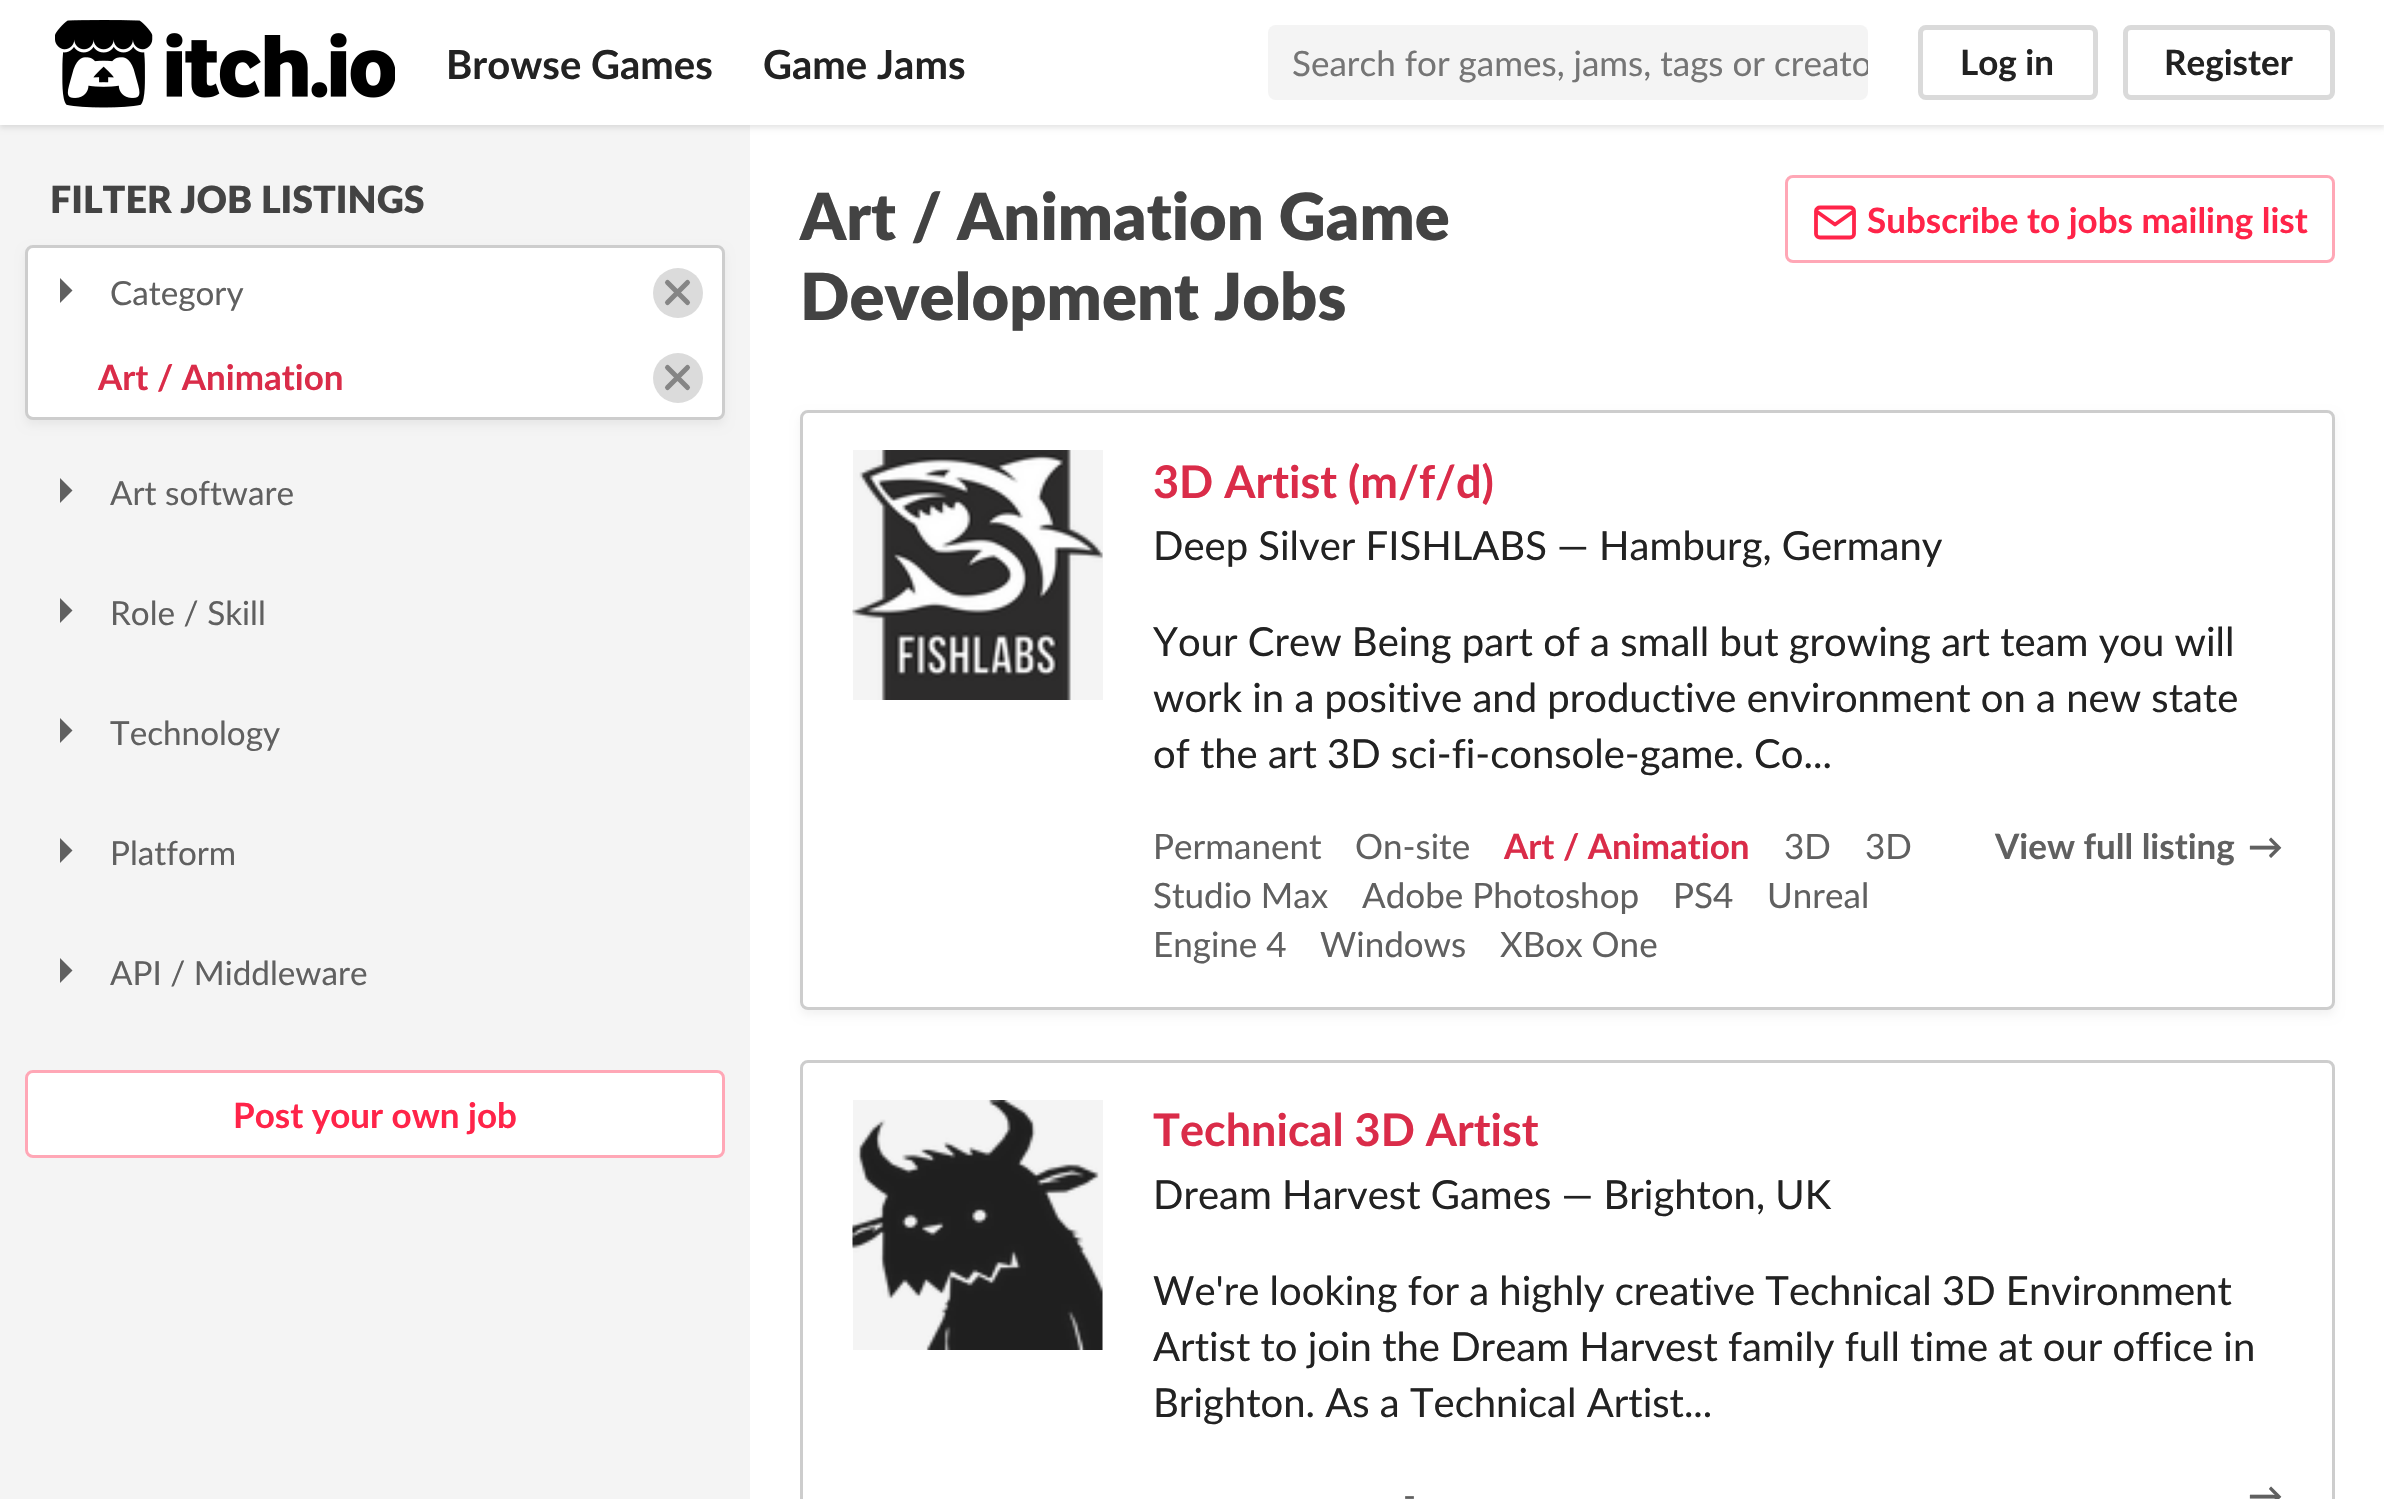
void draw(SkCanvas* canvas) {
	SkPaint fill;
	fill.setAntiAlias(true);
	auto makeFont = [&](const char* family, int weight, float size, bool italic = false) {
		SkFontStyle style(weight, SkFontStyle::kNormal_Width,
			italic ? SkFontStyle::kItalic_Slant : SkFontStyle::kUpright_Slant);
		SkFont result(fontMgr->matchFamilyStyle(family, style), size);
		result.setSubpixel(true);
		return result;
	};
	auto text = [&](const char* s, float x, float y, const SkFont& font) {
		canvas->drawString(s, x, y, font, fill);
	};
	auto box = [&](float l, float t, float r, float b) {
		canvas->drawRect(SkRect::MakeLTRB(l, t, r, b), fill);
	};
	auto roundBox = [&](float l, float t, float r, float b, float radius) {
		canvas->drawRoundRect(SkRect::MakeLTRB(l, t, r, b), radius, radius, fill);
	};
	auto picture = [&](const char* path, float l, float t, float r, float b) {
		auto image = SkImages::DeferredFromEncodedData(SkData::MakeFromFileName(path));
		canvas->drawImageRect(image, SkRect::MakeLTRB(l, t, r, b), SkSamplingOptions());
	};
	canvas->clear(0xFFFFFFFF);
	fill.setColor(0xFFF4F4F4);
	box(0, 125, 750, 1499);
	fill.setColor(0x1A000000);
	fill.setMaskFilter(SkMaskFilter::MakeBlur(kNormal_SkBlurStyle, 2.5f));
	canvas->drawRect(SkRect::MakeLTRB(0, 3, 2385, 128), fill);
	fill.setMaskFilter(nullptr);
	fill.setColor(0xFFFFFFFF);
	box(0, 0, 2384, 125);
	picture("image0.png", 55, 20, 395, 108);
	fill.setColor(0xFFF4F4F4);
	roundBox(1268, 25, 1868, 100, 8);
	fill.setStyle(SkPaint::kStroke_Style);
	fill.setStrokeWidth(5);
	fill.setColor(0xFFDADADA);
	canvas->drawRoundRect(SkRect::MakeLTRB(1920.5f, 27.5f, 2095.5f, 97.5f), 5.5f, 5.5f, fill);
	canvas->drawRoundRect(SkRect::MakeLTRB(2125.5f, 27.5f, 2332.5f, 97.5f), 5.5f, 5.5f, fill);
	fill.setStyle(SkPaint::kFill_Style);
	fill.setColor(0x0D000000);
	fill.setMaskFilter(SkMaskFilter::MakeBlur(kNormal_SkBlurStyle, 5));
	canvas->drawRoundRect(SkRect::MakeLTRB(25, 250, 725, 425), 8, 8, fill);
	fill.setMaskFilter(nullptr);
	fill.setColor(0xFFFFFFFF);
	canvas->drawRoundRect(SkRect::MakeLTRB(26.5f, 246.5f, 723.5f, 418.5f), 6.5f, 6.5f, fill);
	fill.setStyle(SkPaint::kStroke_Style);
	fill.setStrokeWidth(3);
	fill.setColor(0xFFCDCDCD);
	canvas->drawRoundRect(SkRect::MakeLTRB(26.5f, 246.5f, 723.5f, 418.5f), 6.5f, 6.5f, fill);
	fill.setStyle(SkPaint::kFill_Style);
	fill.setColor(0xFF606060);
	canvas->drawPath(SkPathBuilder().moveTo(60, 278).lineTo(72.5f, 290.5f).lineTo(60, 303).close().detach(), fill);
	fill.setColor(0xFFDBDBDB);
	canvas->drawCircle(678, 293, 25, fill);
	fill.setStyle(SkPaint::kStroke_Style);
	fill.setStrokeWidth(5);
	fill.setStrokeCap(SkPaint::kRound_Cap);
	fill.setStrokeJoin(SkPaint::kRound_Join);
	fill.setColor(0xFF858585);
	canvas->drawPath(SkPathBuilder().moveTo(687.5f, 282.5f).lineTo(667.5f, 302.5f).moveTo(667.5f, 282.5f).lineTo(687.5f, 302.5f).detach(), fill);
	fill.setStyle(SkPaint::kFill_Style);
	fill.setColor(0xFFDBDBDB);
	canvas->drawCircle(678, 378, 25, fill);
	fill.setStyle(SkPaint::kStroke_Style);
	fill.setColor(0xFF858585);
	canvas->drawPath(SkPathBuilder().moveTo(687.5f, 367.5f).lineTo(667.5f, 387.5f).moveTo(667.5f, 367.5f).lineTo(687.5f, 387.5f).detach(), fill);
	fill.setStyle(SkPaint::kFill_Style);
	fill.setColor(0xFF606060);
	canvas->drawPath(SkPathBuilder().moveTo(60, 478).lineTo(72.5f, 490.5f).lineTo(60, 503).close().detach(), fill);
	canvas->drawPath(SkPathBuilder().moveTo(60, 598).lineTo(72.5f, 610.5f).lineTo(60, 623).close().detach(), fill);
	canvas->drawPath(SkPathBuilder().moveTo(60, 718).lineTo(72.5f, 730.5f).lineTo(60, 743).close().detach(), fill);
	canvas->drawPath(SkPathBuilder().moveTo(60, 838).lineTo(72.5f, 850.5f).lineTo(60, 863).close().detach(), fill);
	canvas->drawPath(SkPathBuilder().moveTo(60, 958).lineTo(72.5f, 970.5f).lineTo(60, 983).close().detach(), fill);
	fill.setColor(0xFFFFFFFF);
	roundBox(25, 1070, 725, 1158, 8);
	fill.setStyle(SkPaint::kStroke_Style);
	fill.setStrokeWidth(3);
	fill.setStrokeCap(SkPaint::kButt_Cap);
	fill.setStrokeJoin(SkPaint::kMiter_Join);
	fill.setColor(0x66FF2449);
	canvas->drawRoundRect(SkRect::MakeLTRB(26.5f, 1071.5f, 723.5f, 1156.5f), 6.5f, 6.5f, fill);
	fill.setColor(0xFFFFA7B6);
	canvas->drawRoundRect(SkRect::MakeLTRB(1786.5f, 176.5f, 2333.5f, 261.5f), 6.5f, 6.5f, fill);
	fill.setStrokeWidth(3.8f);
	fill.setStrokeCap(SkPaint::kRound_Cap);
	fill.setStrokeJoin(SkPaint::kRound_Join);
	fill.setColor(0xFFFF2449);
	canvas->drawPath(SkPathBuilder().moveTo(1820, 207.5f).lineTo(1850, 207.5f).cubicTo(1852, 207.5f, 1854, 209, 1854, 211).lineTo(1854, 234).cubicTo(1854, 236, 1852, 237.5f, 1850, 237.5f).lineTo(1820, 237.5f).cubicTo(1818, 237.5f, 1816, 236, 1816, 234).lineTo(1816, 211).cubicTo(1816, 209, 1818, 207.5f, 1820, 207.5f).close().moveTo(1854, 211).lineTo(1835, 224.5f).lineTo(1816, 211).detach(), fill);
	canvas->save();
	canvas->clipPath(SkPathBuilder(SkPathFillType::kEvenOdd).moveTo(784, 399).lineTo(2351, 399).lineTo(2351, 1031).lineTo(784, 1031).close().moveTo(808, 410).lineTo(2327, 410).cubicTo(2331.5f, 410, 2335, 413.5f, 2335, 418).lineTo(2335, 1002).cubicTo(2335, 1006.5f, 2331.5f, 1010, 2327, 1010).lineTo(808, 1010).cubicTo(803.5f, 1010, 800, 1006.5f, 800, 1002).lineTo(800, 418).cubicTo(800, 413.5f, 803.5f, 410, 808, 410).close().detach(), true);
	fill.setStyle(SkPaint::kFill_Style);
	fill.setColor(0x0D000000);
	fill.setMaskFilter(SkMaskFilter::MakeBlur(kNormal_SkBlurStyle, 5));
	canvas->drawRoundRect(SkRect::MakeLTRB(800, 415, 2335, 1015), 8, 8, fill);
	fill.setMaskFilter(nullptr);
	canvas->restore();
	fill.setStyle(SkPaint::kStroke_Style);
	fill.setStrokeWidth(3);
	fill.setStrokeCap(SkPaint::kButt_Cap);
	fill.setStrokeJoin(SkPaint::kMiter_Join);
	fill.setColor(0xFFCDCDCD);
	canvas->drawRoundRect(SkRect::MakeLTRB(801.5f, 411.5f, 2333.5f, 1008.5f), 6.5f, 6.5f, fill);
	fill.setStyle(SkPaint::kFill_Style);
	fill.setColor(0xFFF4F4F4);
	box(853, 450, 1103, 700);
	picture("image1.png", 852, 450, 1103, 700);
	fill.setStyle(SkPaint::kStroke_Style);
	fill.setColor(0xFFCDCDCD);
	canvas->drawRoundRect(SkRect::MakeLTRB(801.5f, 1061.5f, 2333.5f, 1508.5f), 6.5f, 6.5f, fill);
	fill.setStyle(SkPaint::kFill_Style);
	fill.setColor(0xFFF4F4F4);
	box(853, 1100, 1103, 1350);
	picture("image2.png", 852, 1100, 1103, 1350);
	auto font1 = makeFont("Lato", 700, 40);
	fill.setColor(0xFF222222);
	text("Browse Games", 446, 79, font1);
	text("Game Jams", 763, 79, font1);
	canvas->save();
	canvas->clipRect(SkRect::MakeLTRB(1293, 43, 1868, 85));
	auto font2 = makeFont("Lato", 400, 35);
	fill.setColor(0xFF757575);
	text("Search for games, jams, tags or creato", 1292, 76, font2);
	canvas->restore();
	auto font3 = makeFont("Lato", 700, 35);
	fill.setColor(0xFF222222);
	text("Log in", 1960, 75, font3);
	text("Register", 2164, 75, font3);
	auto font4 = makeFont("Lato", 900, 37.5f);
	fill.setColor(0xFF434343);
	text("FILTER JOB LISTINGS", 50, 213, font4);
	auto font5 = makeFont("Lato", 400, 33.25f);
	fill.setColor(0xFF606060);
	text("Category", 110, 305, font5);
	fill.setColor(0xFFDA2C49);
	text("Art / Animation", 98, 390, font3);
	fill.setColor(0xFF606060);
	text("Art software", 110, 505, font5);
	text("Role / Skill", 110, 625, font5);
	text("Technology", 110, 745, font5);
	text("Platform", 110, 865, font5);
	text("API / Middleware", 110, 985, font5);
	fill.setColor(0xFFFF2449);
	text("Post your own job", 233, 1128, font3);
	auto font6 = makeFont("Lato", 900, 65);
	fill.setColor(0xFF434343);
	text("Art / Animation Game", 800, 240, font6);
	text("Development Jobs", 800, 320, font6);
	fill.setColor(0xFFFF2449);
	text("Subscribe to jobs mailing list", 1867, 233, font3);
	auto font7 = makeFont("Lato", 700, 45);
	fill.setColor(0xFFDA2C49);
	text("3D Artist (m/f/d)", 1153, 498, font7);
	auto font8 = makeFont("Lato", 400, 40);
	fill.setColor(0xFF222222);
	text("Deep Silver FISHLABS — Hamburg, Germany", 1153, 560, font8);
	text("Your Crew Being part of a small but growing art team you will", 1153, 656, font8);
	text("work in a positive and productive environment on a new state", 1153, 712, font8);
	text("of the art 3D sci-fi-console-game. Co...", 1153, 768, font8);
	fill.setColor(0xFF606060);
	text("Permanent", 1153, 859, font2);
	text("On-site", 1355, 859, font2);
	fill.setColor(0xFFDA2C49);
	text("Art / Animation", 1504, 859, font3);
	fill.setColor(0xFF606060);
	text("3D", 1784, 859, font2);
	text("3D", 1865, 859, font2);
	text("Studio Max", 1153, 908, font2);
	text("Adobe Photoshop", 1362, 908, font2);
	text("PS4", 1673, 908, font2);
	text("Unreal", 1767, 908, font2);
	text("Engine 4", 1153, 957, font2);
	text("Windows", 1320, 957, font2);
	text("XBox One", 1500, 957, font2);
	text("View full listing", 1995, 859, font3);
	text("→", 2248, 859, font3);
	fill.setColor(0xFFDA2C49);
	text("Technical 3D Artist", 1153, 1146, font7);
	fill.setColor(0xFF222222);
	text("Dream Harvest Games — Brighton, UK", 1153, 1209, font8);
	text("We're looking for a highly creative Technical 3D Environment", 1153, 1305, font8);
	text("Artist to join the Dream Harvest family full time at our office in", 1153, 1361, font8);
	text("Brighton. As a Technical Artist...", 1153, 1417, font8);
	fill.setColor(0xFF606060);
	text("-", 1403, 1508, font2);
	text("→", 2248, 1508, font3);
}
